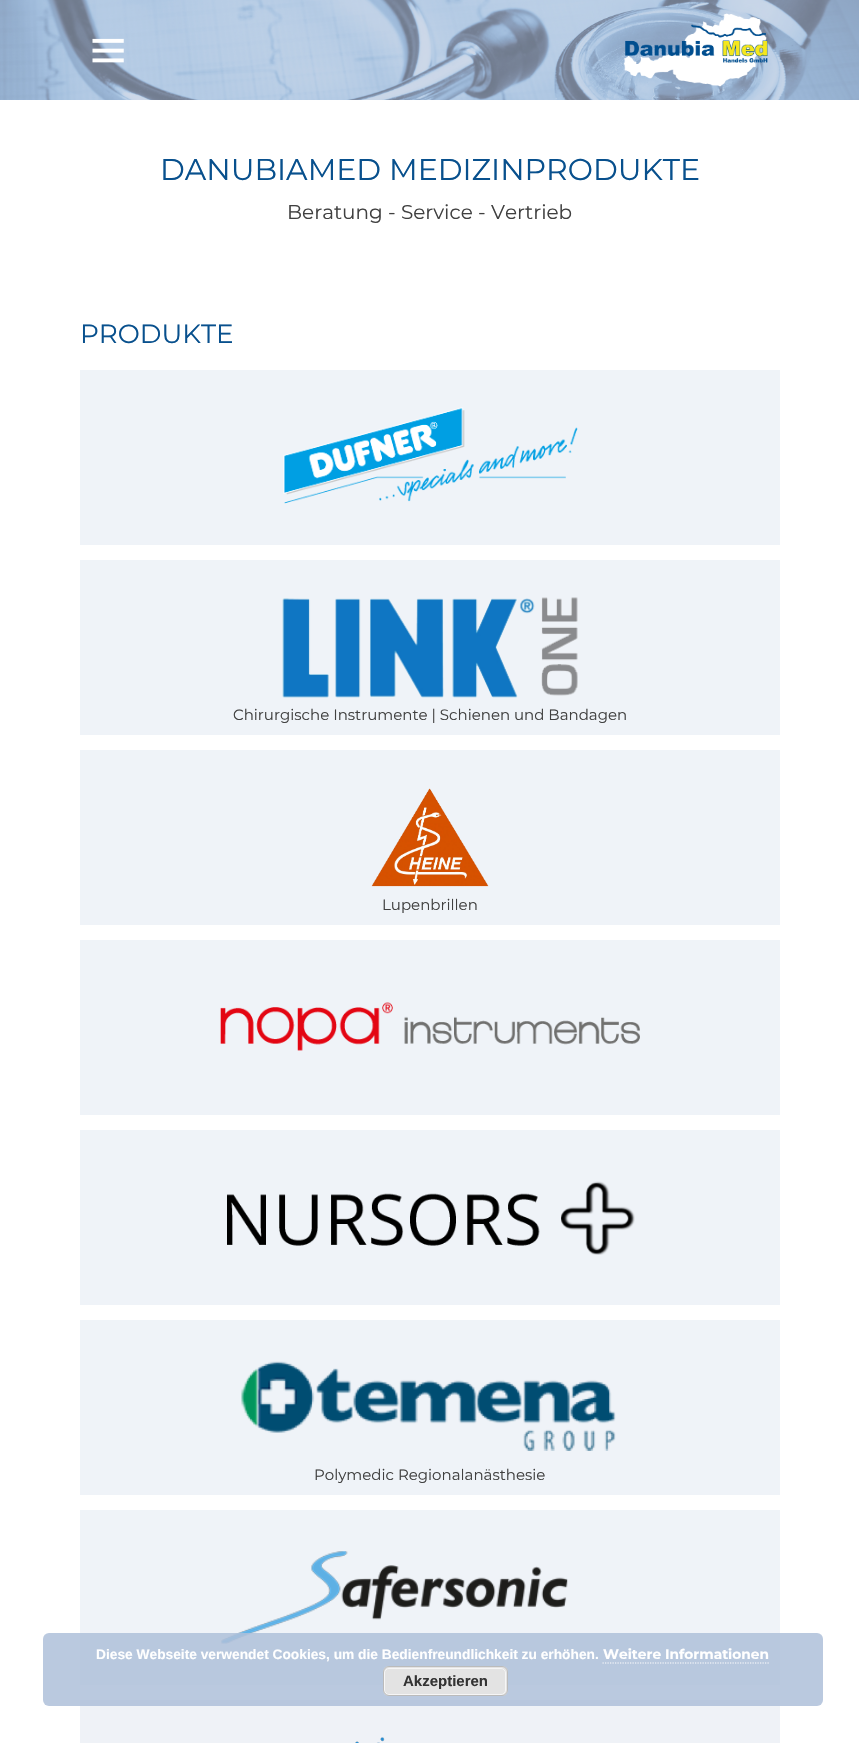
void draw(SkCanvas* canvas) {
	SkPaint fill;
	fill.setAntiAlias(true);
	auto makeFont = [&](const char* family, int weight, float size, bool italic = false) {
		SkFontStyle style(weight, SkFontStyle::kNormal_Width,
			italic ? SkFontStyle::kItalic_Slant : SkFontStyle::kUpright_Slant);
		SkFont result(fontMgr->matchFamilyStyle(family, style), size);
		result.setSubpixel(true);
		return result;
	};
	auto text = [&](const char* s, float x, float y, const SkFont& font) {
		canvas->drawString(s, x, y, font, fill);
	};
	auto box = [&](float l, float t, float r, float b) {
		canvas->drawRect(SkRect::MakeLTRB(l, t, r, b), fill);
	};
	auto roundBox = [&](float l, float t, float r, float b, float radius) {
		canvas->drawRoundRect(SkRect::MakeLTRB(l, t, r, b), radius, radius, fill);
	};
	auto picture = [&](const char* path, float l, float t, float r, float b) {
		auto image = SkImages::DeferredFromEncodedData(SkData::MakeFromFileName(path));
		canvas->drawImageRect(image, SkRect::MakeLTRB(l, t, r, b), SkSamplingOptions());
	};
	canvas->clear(0xFFFFFFFF);
	picture("image0.png", 0, 0, 859, 100);
	picture("image1.png", 92, 38, 124, 63);
	picture("image2.png", 623, 13, 768, 87);
	fill.setColor(0xFFEFF3F8);
	box(80, 370, 780, 545);
	picture("image3.png", 283, 407, 578, 504);
	box(80, 560, 780, 735);
	picture("image4.png", 282, 597, 578, 698);
	box(80, 750, 780, 925);
	picture("image5.png", 371, 788, 489, 887);
	box(80, 940, 780, 1115);
	picture("image6.png", 220, 1002, 640, 1051);
	box(80, 1130, 780, 1305);
	picture("image7.png", 227, 1181, 635, 1255);
	box(80, 1320, 780, 1495);
	picture("image8.png", 241, 1361, 616, 1451);
	box(80, 1510, 780, 1685);
	picture("image9.png", 221, 1551, 568, 1644);
	fill.setColor(0xFFEFF2F7);
	box(80, 1700, 780, 1743);
	picture("image10.png", 355, 1737, 385, 1743);
	fill.setColor(0xD9AEBFD9);
	roundBox(43, 1633, 823, 1706, 6);
	fill.setStyle(SkPaint::kStroke_Style);
	fill.setStrokeWidth(1.2f);
	fill.setColor(0xFFFFFFFF);
	fill.setPathEffect(SkDashPathEffect::Make({{1.25f, 1.25f}}, 0));
	canvas->drawPath(SkPathBuilder().moveTo(602.5f, 1663).lineTo(769, 1663).detach(), fill);
	fill.setPathEffect(nullptr);
	fill.setStyle(SkPaint::kFill_Style);
	fill.setColor(0xFFE3E3E3);
	roundBox(383, 1666, 508, 1696, 6);
	fill.setStyle(SkPaint::kStroke_Style);
	fill.setStrokeWidth(1);
	fill.setColor(0xFFF6F6F6);
	canvas->drawRoundRect(SkRect::MakeLTRB(384.5f, 1668.5f, 505.5f, 1694.5f), 4.5f, 4.5f, fill);
	fill.setColor(0xFFBBBBBB);
	canvas->drawRoundRect(SkRect::MakeLTRB(383.5f, 1666.5f, 507.5f, 1695.5f), 5.5f, 5.5f, fill);
	auto font1 = makeFont("Montserrat", 400, 30);
	fill.setStyle(SkPaint::kFill_Style);
	fill.setColor(0xFF08508D);
	text("DANUBIAMED MEDIZINPRODUKTE", 160, 180, font1);
	auto font2 = makeFont("Montserrat", 400, 20);
	fill.setColor(0xFF404040);
	text("Beratung - Service - Vertrieb", 287, 219, font2);
	auto font3 = makeFont("Montserrat", 400, 26.25f);
	fill.setColor(0xFF08508D);
	text("PRODUKTE", 80, 343, font3);
	auto font4 = makeFont("Montserrat", 400, 15);
	fill.setColor(0xFF404040);
	text("Chirurgische Instrumente | Schienen und Bandagen", 233, 720, font4);
	text("Lupenbrillen", 382, 910, font4);
	text("Polymedic Regionalanästhesie", 314, 1480, font4);
	auto font5 = makeFont("Liberation Sans", 700, 13.75f);
	fill.setColor(0xFFFFFFFF);
	text("Diese Webseite verwendet Cookies, um die Bedienfreundlichkeit zu erhöhen.", 96, 1659, font5);
	auto font6 = makeFont("Montserrat", 700, 13.75f);
	text("Weitere Informationen", 603, 1659, font6);
	auto font7 = makeFont("Liberation Sans", 700, 15);
	fill.setColor(0xFF333333);
	text("Akzeptieren", 403, 1686, font7);
}
